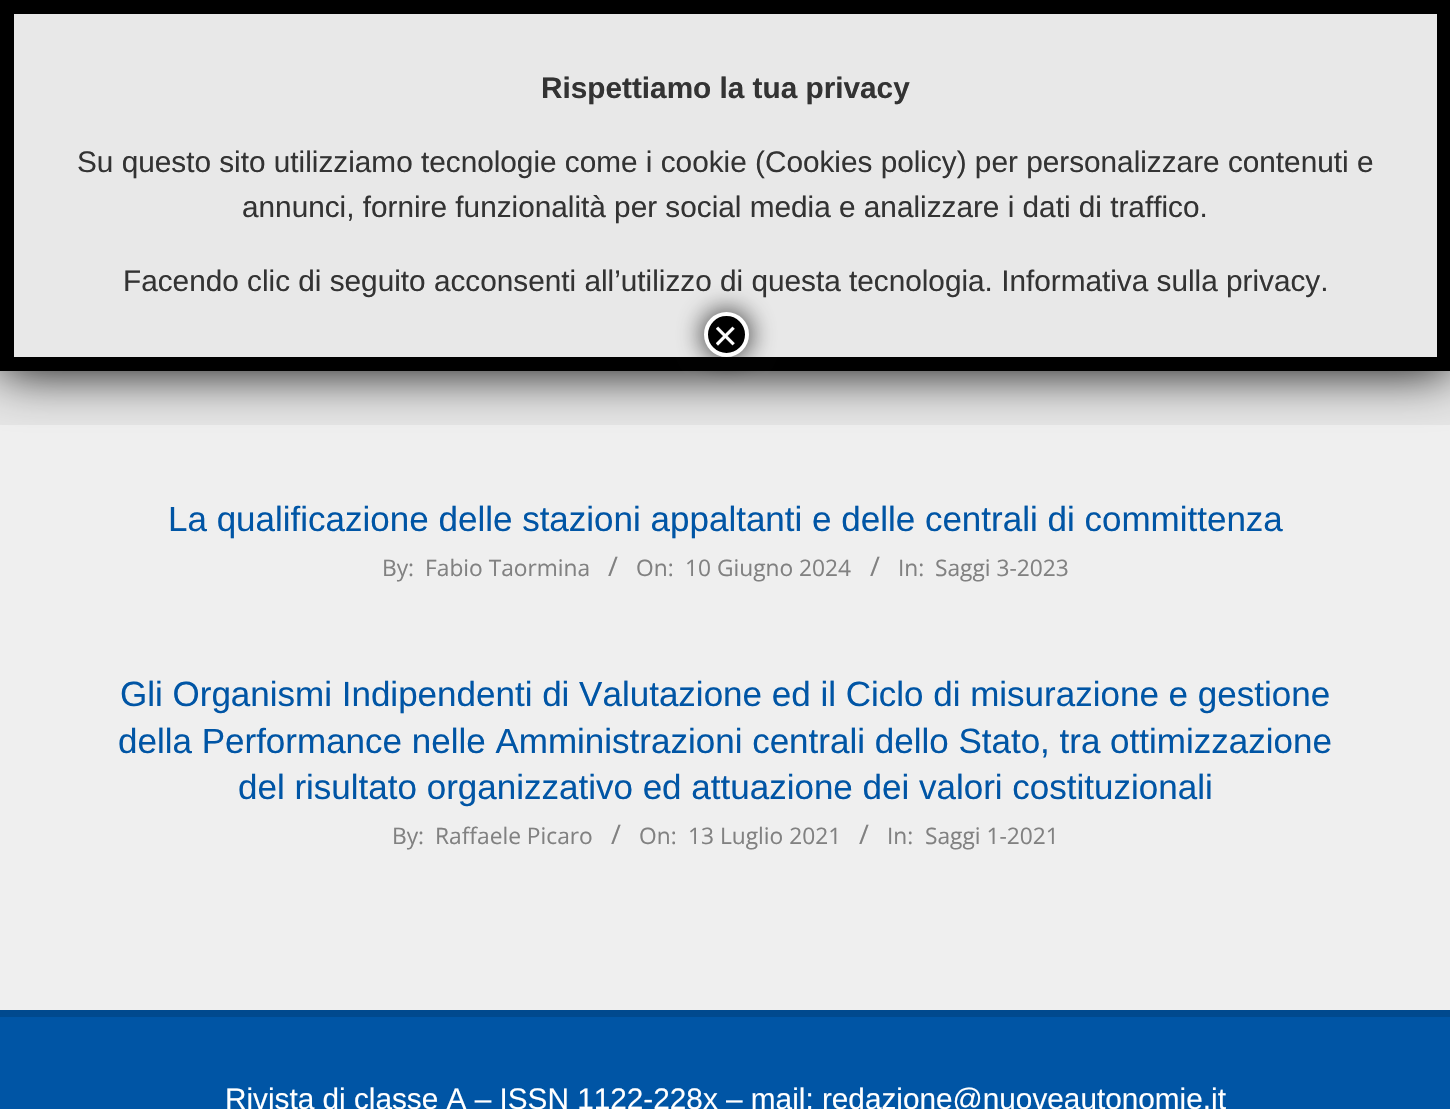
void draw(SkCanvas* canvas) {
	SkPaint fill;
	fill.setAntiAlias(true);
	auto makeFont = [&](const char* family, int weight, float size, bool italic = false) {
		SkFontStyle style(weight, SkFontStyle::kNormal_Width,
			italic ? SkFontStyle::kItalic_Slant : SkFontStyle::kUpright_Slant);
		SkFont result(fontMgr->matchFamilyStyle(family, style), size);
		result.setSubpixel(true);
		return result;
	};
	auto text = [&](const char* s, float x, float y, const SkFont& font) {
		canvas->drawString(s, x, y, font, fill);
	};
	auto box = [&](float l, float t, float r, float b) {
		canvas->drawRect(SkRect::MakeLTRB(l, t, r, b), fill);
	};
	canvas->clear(0xFF0055A5);
	fill.setColor(0xFFEFEFEF);
	box(0, 425, 1450, 1010);
	fill.setColor(0xFFE5E5E5);
	box(0, 371, 1450, 425);
	fill.setColor(0xFF020202);
	fill.setMaskFilter(SkMaskFilter::MakeBlur(kNormal_SkBlurStyle, 26));
	canvas->drawRoundRect(SkRect::MakeLTRB(0, 0, 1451, 371), 5, 5, fill);
	fill.setMaskFilter(nullptr);
	fill.setColor(0xFFE8E8E8);
	box(14, 14, 1437, 357);
	fill.setStyle(SkPaint::kStroke_Style);
	fill.setStrokeWidth(14);
	fill.setColor(0xFF000000);
	canvas->drawPath(SkPathBuilder().moveTo(7, 7).lineTo(1444, 7).lineTo(1444, 364).lineTo(7, 364).close().detach(), fill);
	fill.setStyle(SkPaint::kFill_Style);
	fill.setColor(0xBF020202);
	fill.setMaskFilter(SkMaskFilter::MakeBlur(kNormal_SkBlurStyle, 13));
	canvas->drawRoundRect(SkRect::MakeLTRB(702, 310, 751, 359), 24.5f, 24.5f, fill);
	fill.setMaskFilter(nullptr);
	fill.setColor(0xFF000000);
	canvas->drawCircle(726.5f, 334.5f, 20.5f, fill);
	fill.setStyle(SkPaint::kStroke_Style);
	fill.setStrokeWidth(4);
	fill.setColor(0xFFFFFFFF);
	canvas->drawCircle(726.5f, 334.5f, 20.5f, fill);
	fill.setStyle(SkPaint::kFill_Style);
	fill.setColor(0xFF00498E);
	box(0, 1010, 1450, 1017);
	auto font1 = makeFont("Liberation Sans", 700, 29.75f);
	fill.setColor(0xFF333333);
	text("Rispettiamo la tua privacy", 541, 98, font1);
	auto font2 = makeFont("Liberation Sans", 400, 29.75f);
	text("Su questo sito utilizziamo tecnologie come i cookie (Cookies policy) per personalizzare contenuti e", 77, 172, font2);
	text("annunci, fornire funzionalità per social media e analizzare i dati di traffico.", 242, 217, font2);
	text("Facendo clic di seguito acconsenti all’utilizzo di questa tecnologia. Informativa sulla privacy.", 123, 291, font2);
	auto font3 = makeFont("Liberation Sans", 400, 42);
	fill.setColor(0xFFFFFFFF);
	text("×", 713, 350, font3);
	auto font4 = makeFont("Liberation Sans", 400, 35);
	fill.setColor(0xFF0055A5);
	text("La qualificazione delle stazioni appaltanti e delle centrali di committenza", 168, 531, font4);
	auto font5 = makeFont("Open Sans", 400, 22.75f);
	fill.setColor(0xFF818181);
	text("By:", 382, 576, font5);
	text("Fabio Taormina", 425, 576, font5);
	auto font6 = makeFont("Open Sans", 400, 27);
	text("/", 608, 576, font6);
	text("On:", 636, 576, font5);
	text("10 Giugno 2024", 685, 576, font5);
	text("/", 870, 576, font6);
	text("In:", 898, 576, font5);
	text("Saggi 3-2023", 935, 576, font5);
	fill.setColor(0xFF0055A5);
	text("Gli Organismi Indipendenti di Valutazione ed il Ciclo di misurazione e gestione", 120, 706, font4);
	text("della Performance nelle Amministrazioni centrali dello Stato, tra ottimizzazione", 118, 753, font4);
	text("del risultato organizzativo ed attuazione dei valori costituzionali", 238, 799, font4);
	fill.setColor(0xFF818181);
	text("By:", 392, 844, font5);
	text("Raffaele Picaro", 435, 844, font5);
	text("/", 611, 844, font6);
	text("On:", 639, 844, font5);
	text("13 Luglio 2021", 688, 844, font5);
	text("/", 859, 844, font6);
	text("In:", 887, 844, font5);
	text("Saggi 1-2021", 925, 844, font5);
	fill.setColor(0xFFFFFFFF);
	text("Rivista di classe A – ISSN 1122-228x – mail: redazione@nuoveautonomie.it", 225, 1109, font2);
}
